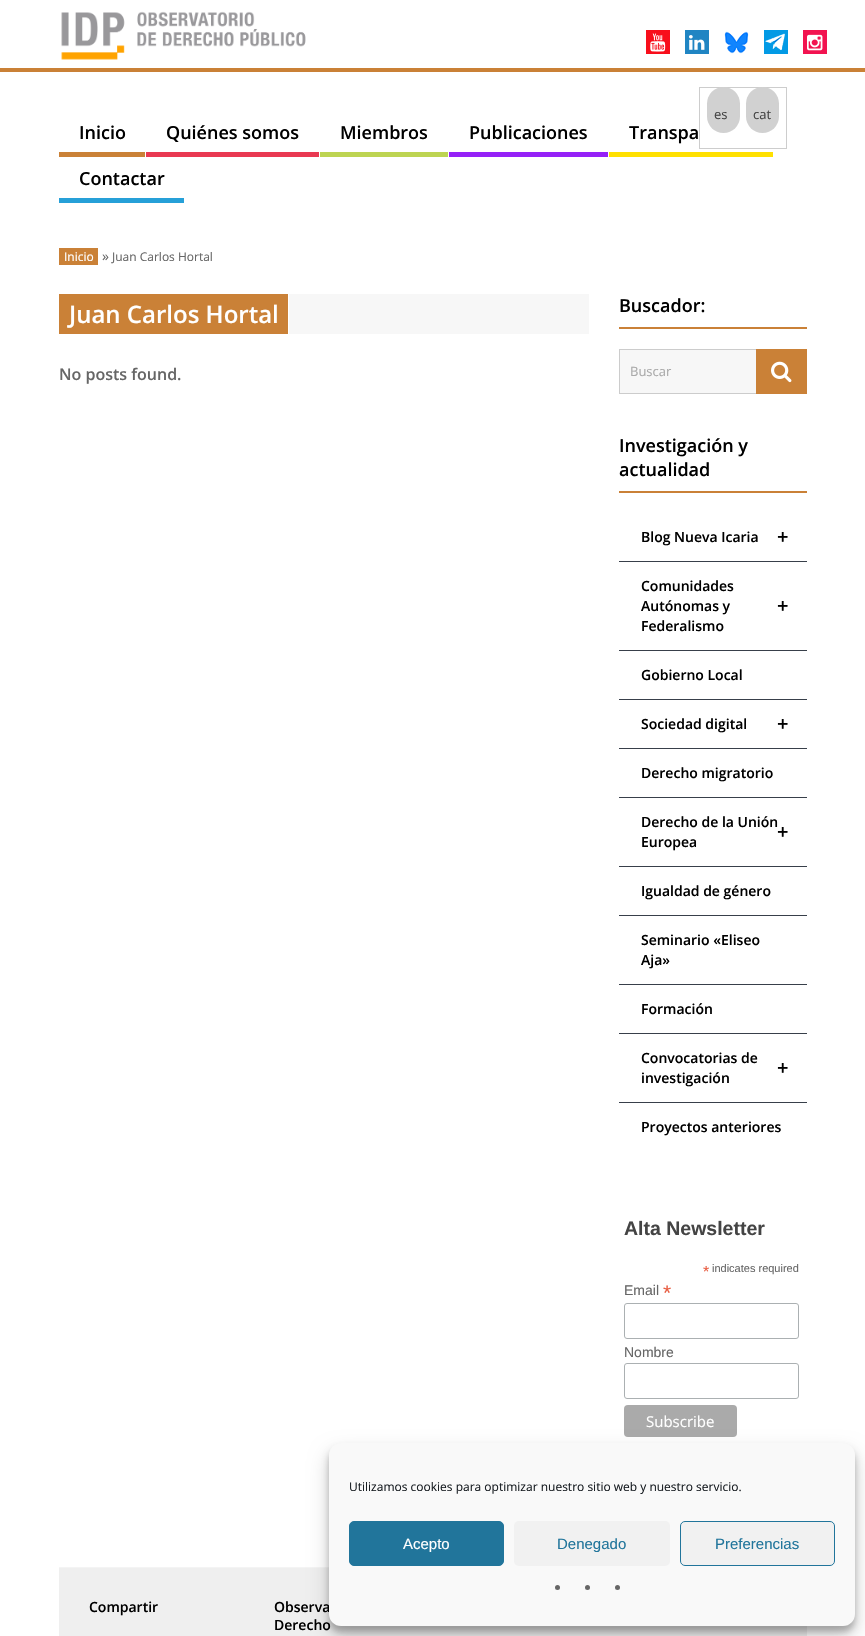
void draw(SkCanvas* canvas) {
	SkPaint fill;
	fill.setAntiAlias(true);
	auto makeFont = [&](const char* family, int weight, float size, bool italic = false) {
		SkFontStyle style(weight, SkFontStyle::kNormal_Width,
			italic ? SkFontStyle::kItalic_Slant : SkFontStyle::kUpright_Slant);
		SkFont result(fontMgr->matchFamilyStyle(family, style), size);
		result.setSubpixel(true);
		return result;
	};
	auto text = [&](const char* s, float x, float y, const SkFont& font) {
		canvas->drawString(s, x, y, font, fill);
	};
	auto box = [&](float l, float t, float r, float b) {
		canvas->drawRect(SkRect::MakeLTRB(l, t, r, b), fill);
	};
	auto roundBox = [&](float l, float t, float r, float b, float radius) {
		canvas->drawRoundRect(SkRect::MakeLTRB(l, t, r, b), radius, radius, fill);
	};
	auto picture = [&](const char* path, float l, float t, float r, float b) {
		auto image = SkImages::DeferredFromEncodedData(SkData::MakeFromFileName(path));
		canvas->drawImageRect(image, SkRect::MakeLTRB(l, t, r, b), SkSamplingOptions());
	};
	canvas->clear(0xFFFFFFFF);
	fill.setColor(0xFFCA8136);
	box(0, 68, 865, 72);
	picture("image0.png", 61, 11, 306, 60);
	fill.setColor(0xFFF80E1B);
	box(646, 30, 670, 54);
	picture("image1.png", 650, 33, 666, 52);
	fill.setColor(0xFF2085C3);
	box(685, 30, 709, 54);
	picture("image2.png", 689, 35, 705, 50);
	picture("image3.png", 724, 31, 749, 54);
	picture("image4.png", 764, 30, 788, 54);
	fill.setColor(0xFFF21350);
	box(803, 30, 827, 54);
	picture("image5.png", 807, 34, 823, 51);
	fill.setStyle(SkPaint::kStroke_Style);
	fill.setStrokeWidth(1);
	fill.setColor(0xFFCDCDCD);
	canvas->drawRect(SkRect::MakeLTRB(699.5f, 87.5f, 786.5f, 148.5f), fill);
	fill.setStyle(SkPaint::kFill_Style);
	fill.setColor(0xFFD1D1D1);
	roundBox(707, 87, 740, 133, 16.5f);
	roundBox(746, 87, 779, 133, 16.5f);
	fill.setColor(0xFFCA8137);
	box(59, 152, 145, 157);
	fill.setColor(0xFFE93952);
	box(146, 152, 319, 157);
	fill.setColor(0xFFBDD452);
	box(320, 152, 448, 157);
	fill.setColor(0xFF9521F7);
	box(449, 152, 608, 157);
	fill.setColor(0xFFFFE000);
	box(609, 152, 773, 157);
	fill.setColor(0xFF26A0D8);
	box(59, 198, 184, 203);
	fill.setColor(0xFFCA8137);
	box(59, 248, 98, 265);
	fill.setColor(0xFFF7F7F7);
	box(289, 294, 589, 334);
	fill.setColor(0xFFCA8137);
	box(59, 294, 288, 334);
	box(619, 327, 807, 329);
	fill.setColor(0xFFF7F7F7);
	box(620, 350, 756, 393);
	fill.setStyle(SkPaint::kStroke_Style);
	fill.setColor(0xFFCCCCCC);
	canvas->drawRect(SkRect::MakeLTRB(619.5f, 349.5f, 806.5f, 393.5f), fill);
	fill.setStyle(SkPaint::kFill_Style);
	fill.setColor(0xFFCA8137);
	box(756, 349, 807, 394);
	picture("image6.png", 771, 361, 792, 383);
	box(619, 491, 807, 493);
	fill.setColor(0xFF383F4A);
	box(619, 561, 807, 562);
	box(619, 650, 807, 651);
	box(619, 699, 807, 700);
	box(619, 748, 807, 749);
	box(619, 797, 807, 798);
	box(619, 866, 807, 867);
	box(619, 915, 807, 916);
	box(619, 984, 807, 985);
	box(619, 1033, 807, 1034);
	box(619, 1102, 807, 1103);
	fill.setStyle(SkPaint::kStroke_Style);
	fill.setColor(0xFFABB0B2);
	canvas->drawRoundRect(SkRect::MakeLTRB(624.5f, 1303.5f, 798.5f, 1338.5f), 2.5f, 2.5f, fill);
	canvas->drawRoundRect(SkRect::MakeLTRB(624.5f, 1363.5f, 798.5f, 1398.5f), 2.5f, 2.5f, fill);
	fill.setStyle(SkPaint::kFill_Style);
	fill.setColor(0xFFAAAAAA);
	roundBox(624, 1405, 737, 1437, 4);
	fill.setColor(0xFFEFEFEF);
	box(59, 1568, 807, 1636);
	fill.setColor(0xFFF4F4F4);
	box(59, 1567, 329, 1568);
	fill.setColor(0x3B000000);
	fill.setMaskFilter(SkMaskFilter::MakeBlur(kNormal_SkBlurStyle, 3));
	canvas->drawRoundRect(SkRect::MakeLTRB(329, 1449, 855, 1632), 12, 12, fill);
	fill.setMaskFilter(nullptr);
	fill.setColor(0x30000000);
	fill.setMaskFilter(SkMaskFilter::MakeBlur(kNormal_SkBlurStyle, 10));
	canvas->drawRoundRect(SkRect::MakeLTRB(329, 1453, 855, 1636), 12, 12, fill);
	fill.setMaskFilter(nullptr);
	auto font1 = makeFont("Open Sans", 400, 13);
	fill.setColor(0xFF444444);
	text("es", 714, 119, font1);
	text("cat", 753, 119, font1);
	auto font2 = makeFont("Open Sans", 600, 18);
	fill.setColor(0xFF000000);
	text("Inicio", 79, 139, font2);
	text("Quiénes somos", 166, 139, font2);
	text("Miembros", 340, 139, font2);
	text("Publicaciones", 469, 139, font2);
	text("Transpa", 629, 139, font2);
	text("Contactar", 79, 185, font2);
	auto font3 = makeFont("Open Sans", 400, 12);
	fill.setColor(0xFFFFFFFF);
	text("Inicio", 64, 261, font3);
	auto font4 = makeFont("Open Sans", 400, 14);
	fill.setColor(0xFF666666);
	text("»", 102, 261, font4);
	text("Juan Carlos Hortal", 112, 261, font3);
	auto font5 = makeFont("Open Sans", 600, 24);
	fill.setColor(0xFFFFFFFF);
	text("Juan Carlos Hortal", 69, 323, font5);
	auto font6 = makeFont("Open Sans", 600, 16);
	fill.setColor(0xFF666666);
	text("No posts found.", 59, 380, font6);
	fill.setColor(0xFF000000);
	text("Buscador:", 619, 312, font2);
	fill.setColor(0xFFAAAAAA);
	text("Buscar", 630, 376, font1);
	fill.setColor(0xFF000000);
	text("Investigación y", 619, 452, font2);
	text("actualidad", 619, 476, font2);
	auto font7 = makeFont("Open Sans", 600, 14);
	text("Blog Nueva Icaria", 641, 542, font7);
	auto font8 = makeFont("Open Sans", 600, 20);
	text("+", 777, 544, font8);
	text("Comunidades", 641, 591, font7);
	text("Autónomas y", 641, 611, font7);
	text("+", 777, 613, font8);
	text("Federalismo", 641, 631, font7);
	text("Gobierno Local", 641, 680, font7);
	text("Sociedad digital", 641, 729, font7);
	text("+", 777, 731, font8);
	text("Derecho migratorio", 641, 778, font7);
	text("Derecho de la Unión", 641, 827, font7);
	text("+", 777, 839, font8);
	text("Europea", 641, 847, font7);
	text("Igualdad de género", 641, 896, font7);
	text("Seminario «Eliseo", 641, 945, font7);
	text("Aja»", 641, 965, font7);
	text("Formación", 641, 1014, font7);
	text("Convocatorias de", 641, 1063, font7);
	text("+", 777, 1075, font8);
	text("investigación", 641, 1083, font7);
	text("Proyectos anteriores", 641, 1132, font7);
	auto font9 = makeFont("Liberation Sans", 700, 19.5f);
	fill.setColor(0xFF444444);
	text("Alta Newsletter", 624, 1235, font9);
	auto font10 = makeFont("Liberation Sans", 400, 16);
	fill.setColor(0xFFE85C41);
	text("*", 703, 1277, font10);
	auto font11 = makeFont("Liberation Sans", 400, 11);
	fill.setColor(0xFF666666);
	text("indicates required", 712, 1272, font11);
	auto font12 = makeFont("Liberation Sans", 400, 14);
	text("Email", 624, 1295, font12);
	auto font13 = makeFont("Liberation Sans", 400, 21);
	fill.setColor(0xFFE85C41);
	text("*", 663, 1300, font13);
	fill.setColor(0xFF666666);
	text("Nombre", 624, 1357, font12);
	auto font14 = makeFont("Open Sans", 400, 15);
	fill.setColor(0xFFFFFFFF);
	text("Subscribe", 646, 1427, font14);
	fill.setColor(0xFF000000);
	text("Compartir", 89, 1612, font7);
	text("Observa", 274, 1612, font7);
	text("Derecho", 274, 1630, font7);
	fill.setColor(0xFFF9F9F9);
	roundBox(329, 1443, 855, 1626, 12);
	fill.setColor(0xFF191E23);
	text("Utilizamos cookies para optimizar nuestro sitio web y nuestro servicio.", 349, 1491, font3);
	fill.setColor(0xFF21759B);
	canvas->drawRoundRect(SkRect::MakeLTRB(349.5f, 1521.5f, 503.5f, 1565.5f), 4.5f, 4.5f, fill);
	fill.setStyle(SkPaint::kStroke_Style);
	canvas->drawRoundRect(SkRect::MakeLTRB(349.5f, 1521.5f, 503.5f, 1565.5f), 4.5f, 4.5f, fill);
	auto font15 = makeFont("Liberation Sans", 400, 15);
	fill.setStyle(SkPaint::kFill_Style);
	fill.setColor(0xFFFFFFFF);
	text("Acepto", 403, 1549, font15);
	fill.setColor(0xFFF1F1F1);
	roundBox(514, 1521, 670, 1566, 5);
	fill.setColor(0xFF21759B);
	text("Denegado", 557, 1549, font15);
	fill.setColor(0xFFF1F1F1);
	canvas->drawRoundRect(SkRect::MakeLTRB(680.5f, 1521.5f, 834.5f, 1565.5f), 4.5f, 4.5f, fill);
	fill.setStyle(SkPaint::kStroke_Style);
	fill.setColor(0xFF21759B);
	canvas->drawRoundRect(SkRect::MakeLTRB(680.5f, 1521.5f, 834.5f, 1565.5f), 4.5f, 4.5f, fill);
	fill.setStyle(SkPaint::kFill_Style);
	text("Preferencias", 715, 1549, font15);
	fill.setColor(0xFF666666);
	canvas->drawCircle(557.5f, 1587.5f, 2.5f, fill);
	canvas->drawCircle(587.5f, 1587.5f, 2.5f, fill);
	canvas->drawCircle(617.5f, 1587.5f, 2.5f, fill);
}
